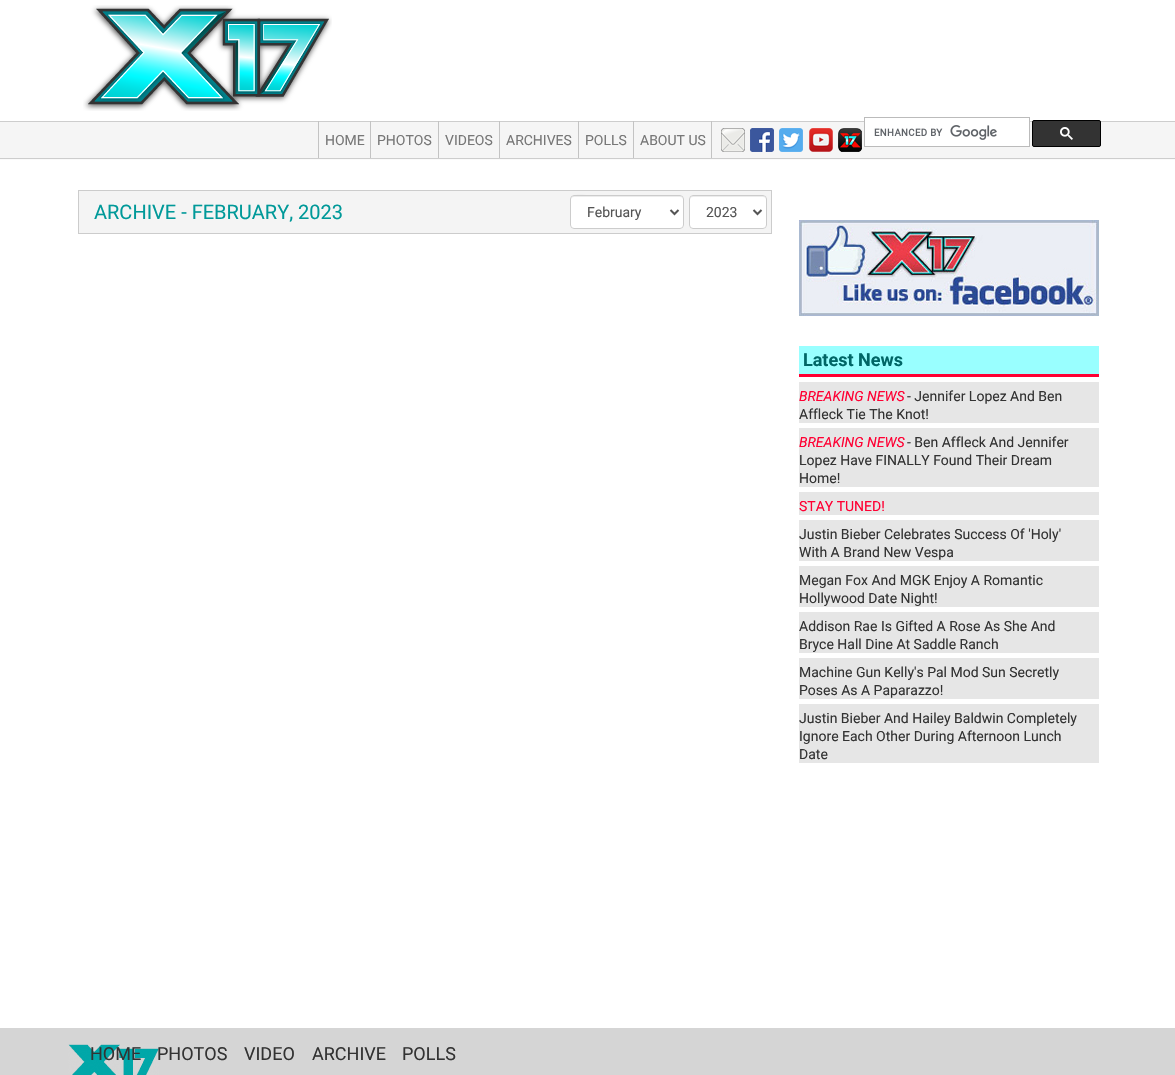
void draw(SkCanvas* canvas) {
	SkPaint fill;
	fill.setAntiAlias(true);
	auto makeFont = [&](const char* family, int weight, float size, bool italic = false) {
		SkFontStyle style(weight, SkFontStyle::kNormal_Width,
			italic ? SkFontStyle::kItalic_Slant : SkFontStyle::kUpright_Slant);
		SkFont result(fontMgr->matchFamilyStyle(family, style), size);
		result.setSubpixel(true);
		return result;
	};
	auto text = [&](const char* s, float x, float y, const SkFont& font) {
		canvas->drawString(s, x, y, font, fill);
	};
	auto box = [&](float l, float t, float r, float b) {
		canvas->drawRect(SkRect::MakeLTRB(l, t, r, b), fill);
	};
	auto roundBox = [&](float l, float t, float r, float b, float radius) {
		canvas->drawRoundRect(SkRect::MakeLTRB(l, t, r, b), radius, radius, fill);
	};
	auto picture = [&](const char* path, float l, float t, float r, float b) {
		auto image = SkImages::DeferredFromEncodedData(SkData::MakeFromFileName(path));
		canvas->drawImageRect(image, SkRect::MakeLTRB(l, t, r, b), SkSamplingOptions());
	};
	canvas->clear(0xFFFFFFFF);
	picture("image0.png", 0, 121, 1175, 160);
	picture("image1.png", 83, 5, 332, 111);
	fill.setColor(0xFFC3C3C3);
	box(370, 121, 371, 158);
	box(318, 121, 319, 158);
	box(438, 121, 439, 158);
	box(499, 121, 500, 158);
	box(578, 121, 579, 158);
	box(633, 121, 634, 158);
	box(711, 121, 712, 158);
	picture("image2.png", 721, 128, 745, 152);
	picture("image3.png", 750, 128, 774, 152);
	picture("image4.png", 779, 128, 803, 152);
	picture("image5.png", 809, 128, 833, 152);
	picture("image6.png", 838, 128, 862, 152);
	fill.setColor(0xFFFFFFFF);
	box(865, 121, 1029, 146);
	fill.setStyle(SkPaint::kStroke_Style);
	fill.setStrokeWidth(1);
	fill.setColor(0xFFBBBBBB);
	canvas->drawRect(SkRect::MakeLTRB(864.5f, 117.5f, 1029.5f, 146.5f), fill);
	picture("image7.png", 874, 125, 997, 140);
	fill.setStyle(SkPaint::kFill_Style);
	fill.setColor(0xFF333333);
	canvas->drawRoundRect(SkRect::MakeLTRB(1032.5f, 120.5f, 1100.5f, 146.5f), 1.5f, 1.5f, fill);
	fill.setStyle(SkPaint::kStroke_Style);
	fill.setColor(0xFF000000);
	canvas->drawRoundRect(SkRect::MakeLTRB(1032.5f, 120.5f, 1100.5f, 146.5f), 1.5f, 1.5f, fill);
	picture("image8.png", 1060, 127, 1073, 140);
	fill.setStyle(SkPaint::kFill_Style);
	fill.setColor(0xFFF4F4F4);
	canvas->drawRect(SkRect::MakeLTRB(78.5f, 190.5f, 771.5f, 233.5f), fill);
	fill.setStyle(SkPaint::kStroke_Style);
	fill.setColor(0xFFCCCCCC);
	canvas->drawRect(SkRect::MakeLTRB(78.5f, 190.5f, 771.5f, 233.5f), fill);
	fill.setStyle(SkPaint::kFill_Style);
	fill.setColor(0xFFFFFFFF);
	roundBox(570, 195, 684, 229, 4);
	fill.setColor(0xFFECECEC);
	canvas->drawPath(SkPathBuilder().moveTo(574, 197).lineTo(680, 197).cubicTo(682, 197, 683, 198, 683, 200).cubicTo(683, 198, 682, 196, 680, 196).lineTo(592, 196).cubicTo(590, 196, 571, 191, 571, 200).cubicTo(571, 198, 572, 197, 574, 197).close().detach(), fill);
	fill.setStyle(SkPaint::kStroke_Style);
	fill.setColor(0xFFCCCCCC);
	canvas->drawRoundRect(SkRect::MakeLTRB(570.5f, 195.5f, 683.5f, 228.5f), 3.5f, 3.5f, fill);
	fill.setStrokeWidth(2);
	fill.setColor(0xFF555555);
	canvas->drawPath(SkPathBuilder().moveTo(670.5f, 210).lineTo(674.5f, 214).lineTo(678.5f, 210).detach(), fill);
	fill.setStyle(SkPaint::kFill_Style);
	fill.setColor(0xFFFFFFFF);
	roundBox(689, 195, 767, 229, 4);
	fill.setColor(0xFFECECEC);
	canvas->drawPath(SkPathBuilder().moveTo(693, 197).lineTo(763, 197).cubicTo(765, 197, 766, 198, 766, 200).cubicTo(766, 193, 755, 196, 751, 196).lineTo(705, 196).cubicTo(701, 196, 690, 193, 690, 200).cubicTo(690, 198, 691, 197, 693, 197).close().detach(), fill);
	fill.setStyle(SkPaint::kStroke_Style);
	fill.setStrokeWidth(1);
	fill.setColor(0xFFCCCCCC);
	canvas->drawRoundRect(SkRect::MakeLTRB(689.5f, 195.5f, 766.5f, 228.5f), 3.5f, 3.5f, fill);
	fill.setStrokeWidth(2);
	fill.setColor(0xFF555555);
	canvas->drawPath(SkPathBuilder().moveTo(753.5f, 210).lineTo(757.5f, 214).lineTo(761.5f, 210).detach(), fill);
	picture("image9.png", 799, 220, 1099, 316);
	fill.setStyle(SkPaint::kFill_Style);
	fill.setColor(0xFF99FFFF);
	box(799, 346, 1099, 374);
	fill.setColor(0xFFFF0033);
	box(799, 374, 1099, 377);
	fill.setColor(0xFFE6E6E6);
	box(799, 382, 1099, 423);
	box(799, 428, 1099, 487);
	box(799, 492, 1099, 515);
	box(799, 520, 1099, 561);
	box(799, 566, 1099, 607);
	box(799, 612, 1099, 653);
	box(799, 658, 1099, 699);
	box(799, 704, 1099, 763);
	fill.setColor(0xFFD5D5D5);
	box(0, 1028, 1175, 1075);
	picture("image10.png", 68, 1044, 159, 1075);
	auto font1 = makeFont("Roboto", 400, 14);
	fill.setColor(0xFF777777);
	text("HOME", 325, 145, font1);
	text("PHOTOS", 377, 145, font1);
	text("VIDEOS", 445, 145, font1);
	text("ARCHIVES", 506, 145, font1);
	text("POLLS", 585, 145, font1);
	text("ABOUT US", 640, 145, font1);
	auto font2 = makeFont("Roboto", 400, 20);
	fill.setColor(0xFF009999);
	text("ARCHIVE - FEBRUARY, 2023", 94, 219, font2);
	fill.setColor(0xFF555555);
	text("February", 587, 217, font1);
	text("2023", 706, 217, font1);
	auto font3 = makeFont("Roboto", 700, 18);
	fill.setColor(0xFF006666);
	text("Latest News", 803, 366, font3);
	auto font4 = makeFont("Roboto", 400, 14, true);
	fill.setColor(0xFFFF0033);
	text("BREAKING NEWS", 799, 401, font4);
	fill.setColor(0xFF333333);
	text("- Jennifer Lopez And Ben", 907, 401, font1);
	text("Affleck Tie The Knot!", 799, 419, font1);
	fill.setColor(0xFFFF0033);
	text("BREAKING NEWS", 799, 447, font4);
	fill.setColor(0xFF333333);
	text("- Ben Affleck And Jennifer", 907, 447, font1);
	text("Lopez Have FINALLY Found Their Dream", 799, 465, font1);
	text("Home!", 799, 483, font1);
	fill.setColor(0xFFFF0033);
	text("STAY TUNED!", 799, 511, font1);
	fill.setColor(0xFF333333);
	text("Justin Bieber Celebrates Success Of 'Holy'", 799, 539, font1);
	text("With A Brand New Vespa", 799, 557, font1);
	text("Megan Fox And MGK Enjoy A Romantic", 799, 585, font1);
	text("Hollywood Date Night!", 799, 603, font1);
	text("Addison Rae Is Gifted A Rose As She And", 799, 631, font1);
	text("Bryce Hall Dine At Saddle Ranch", 799, 649, font1);
	text("Machine Gun Kelly's Pal Mod Sun Secretly", 799, 677, font1);
	text("Poses As A Paparazzo!", 799, 695, font1);
	text("Justin Bieber And Hailey Baldwin Completely", 799, 723, font1);
	text("Ignore Each Other During Afternoon Lunch", 799, 741, font1);
	text("Date", 799, 759, font1);
	auto font5 = makeFont("Roboto", 400, 18);
	text("HOME", 90, 1060, font5);
	text("PHOTOS", 157, 1060, font5);
	text("VIDEO", 244, 1060, font5);
	text("ARCHIVE", 312, 1060, font5);
	text("POLLS", 402, 1060, font5);
}
